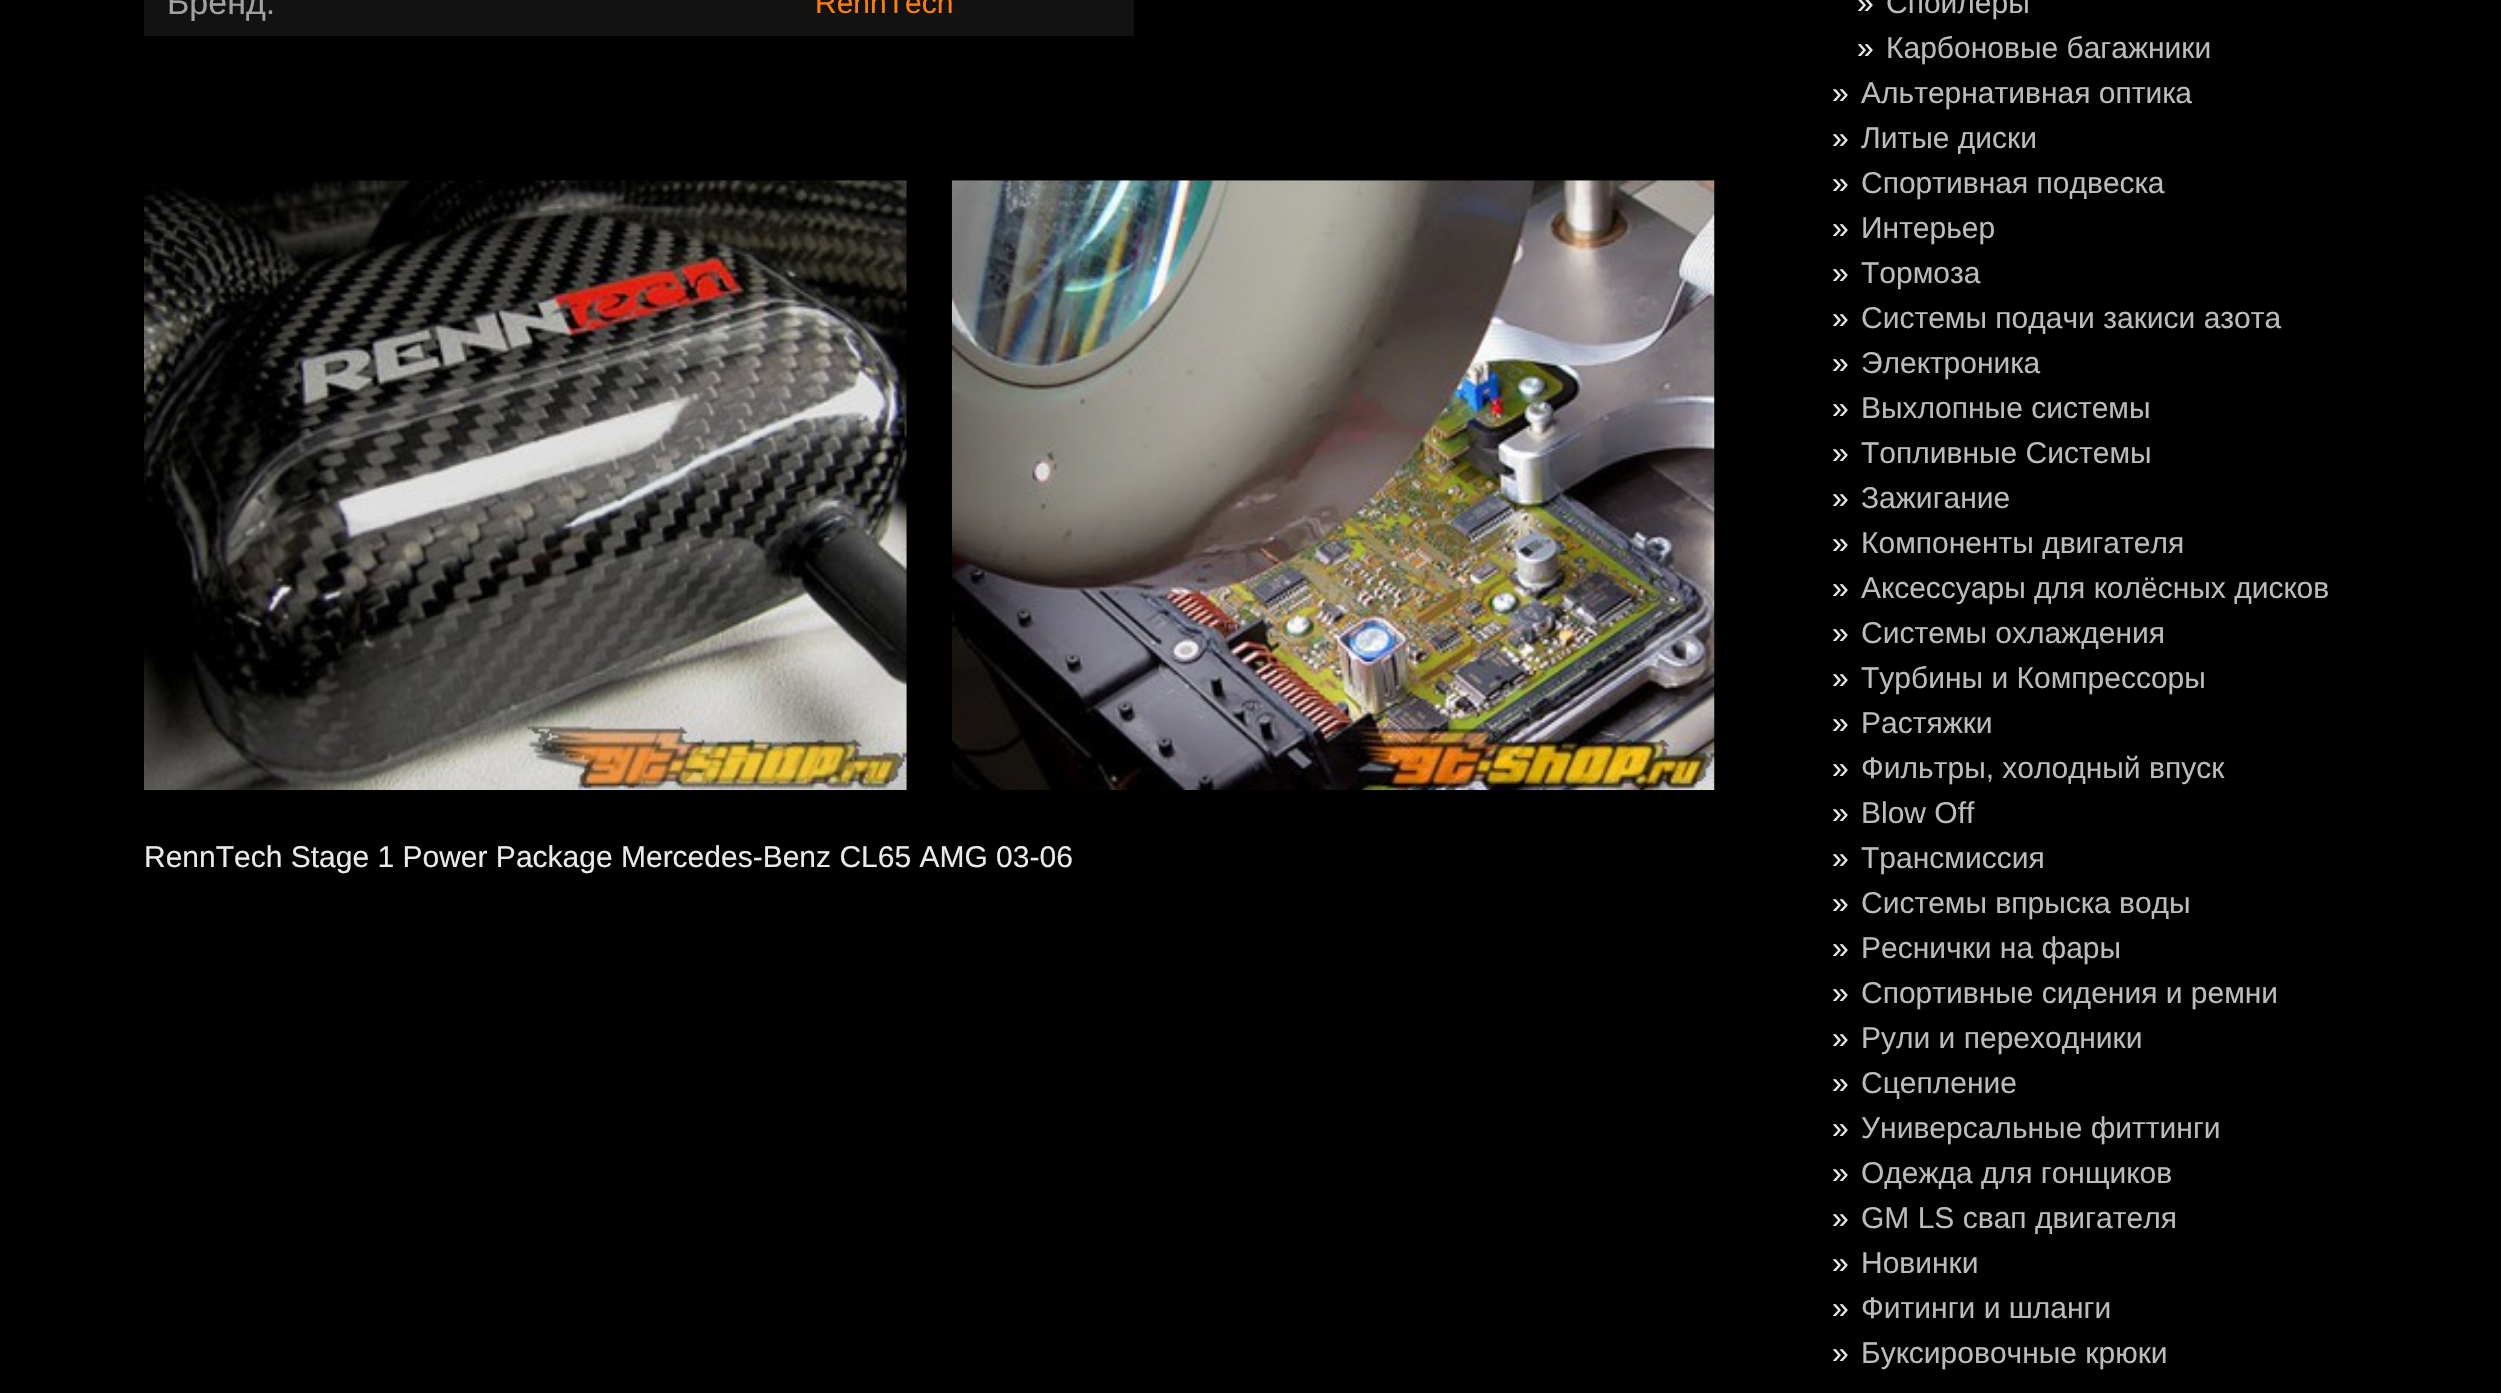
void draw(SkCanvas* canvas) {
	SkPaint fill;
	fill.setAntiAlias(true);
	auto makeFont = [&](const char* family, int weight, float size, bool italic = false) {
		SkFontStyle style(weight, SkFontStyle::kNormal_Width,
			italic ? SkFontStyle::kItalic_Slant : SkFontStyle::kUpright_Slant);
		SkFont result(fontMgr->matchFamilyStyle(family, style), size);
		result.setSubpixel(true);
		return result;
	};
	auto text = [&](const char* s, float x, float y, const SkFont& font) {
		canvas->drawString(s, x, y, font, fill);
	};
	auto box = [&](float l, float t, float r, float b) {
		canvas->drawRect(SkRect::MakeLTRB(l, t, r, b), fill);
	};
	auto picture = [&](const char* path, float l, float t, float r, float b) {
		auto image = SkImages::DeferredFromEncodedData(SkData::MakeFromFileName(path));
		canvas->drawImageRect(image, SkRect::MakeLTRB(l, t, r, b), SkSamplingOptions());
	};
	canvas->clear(0xFF000000);
	fill.setColor(0xFF121212);
	box(144, 0, 1134, 36);
	picture("image0.png", 144, 180, 907, 790);
	picture("image1.png", 951, 180, 1715, 790);
	auto font1 = makeFont("Liberation Sans", 400, 34);
	fill.setColor(0xFFA1A1A1);
	text("Бренд:", 167, 14, font1);
	auto font2 = makeFont("Liberation Sans", 400, 30);
	fill.setColor(0xFFFF8000);
	text("RennTech", 815, 13, font2);
	fill.setColor(0xFFEAEAEA);
	text("RennTech Stage 1 Power Package Mercedes-Benz CL65 AMG 03-06", 144, 867, font2);
	text("»", 1857, 13, font2);
	fill.setColor(0xFFBBBBBB);
	text("Спойлеры", 1886, 13, font2);
	fill.setColor(0xFFEAEAEA);
	text("»", 1857, 58, font2);
	fill.setColor(0xFFBBBBBB);
	text("Карбоновые багажники", 1886, 58, font2);
	fill.setColor(0xFFEAEAEA);
	text("»", 1832, 103, font2);
	fill.setColor(0xFFBBBBBB);
	text("Альтернативная оптика", 1861, 103, font2);
	fill.setColor(0xFFEAEAEA);
	text("»", 1832, 148, font2);
	fill.setColor(0xFFBBBBBB);
	text("Литые диски", 1861, 148, font2);
	fill.setColor(0xFFEAEAEA);
	text("»", 1832, 193, font2);
	fill.setColor(0xFFBBBBBB);
	text("Спортивная подвеска", 1861, 193, font2);
	fill.setColor(0xFFEAEAEA);
	text("»", 1832, 238, font2);
	fill.setColor(0xFFBBBBBB);
	text("Интерьер", 1861, 238, font2);
	fill.setColor(0xFFEAEAEA);
	text("»", 1832, 283, font2);
	fill.setColor(0xFFBBBBBB);
	text("Тормоза", 1861, 283, font2);
	fill.setColor(0xFFEAEAEA);
	text("»", 1832, 328, font2);
	fill.setColor(0xFFBBBBBB);
	text("Системы подачи закиси азота", 1861, 328, font2);
	fill.setColor(0xFFEAEAEA);
	text("»", 1832, 373, font2);
	fill.setColor(0xFFBBBBBB);
	text("Электроника", 1861, 373, font2);
	fill.setColor(0xFFEAEAEA);
	text("»", 1832, 418, font2);
	fill.setColor(0xFFBBBBBB);
	text("Выхлопные системы", 1861, 418, font2);
	fill.setColor(0xFFEAEAEA);
	text("»", 1832, 463, font2);
	fill.setColor(0xFFBBBBBB);
	text("Топливные Системы", 1861, 463, font2);
	fill.setColor(0xFFEAEAEA);
	text("»", 1832, 508, font2);
	fill.setColor(0xFFBBBBBB);
	text("Зажигание", 1861, 508, font2);
	fill.setColor(0xFFEAEAEA);
	text("»", 1832, 553, font2);
	fill.setColor(0xFFBBBBBB);
	text("Компоненты двигателя", 1861, 553, font2);
	fill.setColor(0xFFEAEAEA);
	text("»", 1832, 598, font2);
	fill.setColor(0xFFBBBBBB);
	text("Аксессуары для колёсных дисков", 1861, 598, font2);
	fill.setColor(0xFFEAEAEA);
	text("»", 1832, 643, font2);
	fill.setColor(0xFFBBBBBB);
	text("Системы охлаждения", 1861, 643, font2);
	fill.setColor(0xFFEAEAEA);
	text("»", 1832, 688, font2);
	fill.setColor(0xFFBBBBBB);
	text("Турбины и Компрессоры", 1861, 688, font2);
	fill.setColor(0xFFEAEAEA);
	text("»", 1832, 733, font2);
	fill.setColor(0xFFBBBBBB);
	text("Растяжки", 1861, 733, font2);
	fill.setColor(0xFFEAEAEA);
	text("»", 1832, 778, font2);
	fill.setColor(0xFFBBBBBB);
	text("Фильтры, холодный впуск", 1861, 778, font2);
	fill.setColor(0xFFEAEAEA);
	text("»", 1832, 823, font2);
	fill.setColor(0xFFBBBBBB);
	text("Blow Off", 1861, 823, font2);
	fill.setColor(0xFFEAEAEA);
	text("»", 1832, 868, font2);
	fill.setColor(0xFFBBBBBB);
	text("Трансмиссия", 1861, 868, font2);
	fill.setColor(0xFFEAEAEA);
	text("»", 1832, 913, font2);
	fill.setColor(0xFFBBBBBB);
	text("Системы впрыска воды", 1861, 913, font2);
	fill.setColor(0xFFEAEAEA);
	text("»", 1832, 958, font2);
	fill.setColor(0xFFBBBBBB);
	text("Реснички на фары", 1861, 958, font2);
	fill.setColor(0xFFEAEAEA);
	text("»", 1832, 1003, font2);
	fill.setColor(0xFFBBBBBB);
	text("Спортивные сидения и ремни", 1861, 1003, font2);
	fill.setColor(0xFFEAEAEA);
	text("»", 1832, 1048, font2);
	fill.setColor(0xFFBBBBBB);
	text("Рули и переходники", 1861, 1048, font2);
	fill.setColor(0xFFEAEAEA);
	text("»", 1832, 1093, font2);
	fill.setColor(0xFFBBBBBB);
	text("Сцепление", 1861, 1093, font2);
	fill.setColor(0xFFEAEAEA);
	text("»", 1832, 1138, font2);
	fill.setColor(0xFFBBBBBB);
	text("Универсальные фиттинги", 1861, 1138, font2);
	fill.setColor(0xFFEAEAEA);
	text("»", 1832, 1183, font2);
	fill.setColor(0xFFBBBBBB);
	text("Одежда для гонщиков", 1861, 1183, font2);
	fill.setColor(0xFFEAEAEA);
	text("»", 1832, 1228, font2);
	fill.setColor(0xFFBBBBBB);
	text("GM LS свап двигателя", 1861, 1228, font2);
	fill.setColor(0xFFEAEAEA);
	text("»", 1832, 1273, font2);
	fill.setColor(0xFFBBBBBB);
	text("Новинки", 1861, 1273, font2);
	fill.setColor(0xFFEAEAEA);
	text("»", 1832, 1318, font2);
	fill.setColor(0xFFBBBBBB);
	text("Фитинги и шланги", 1861, 1318, font2);
	fill.setColor(0xFFEAEAEA);
	text("»", 1832, 1363, font2);
	fill.setColor(0xFFBBBBBB);
	text("Буксировочные крюки", 1861, 1363, font2);
}
